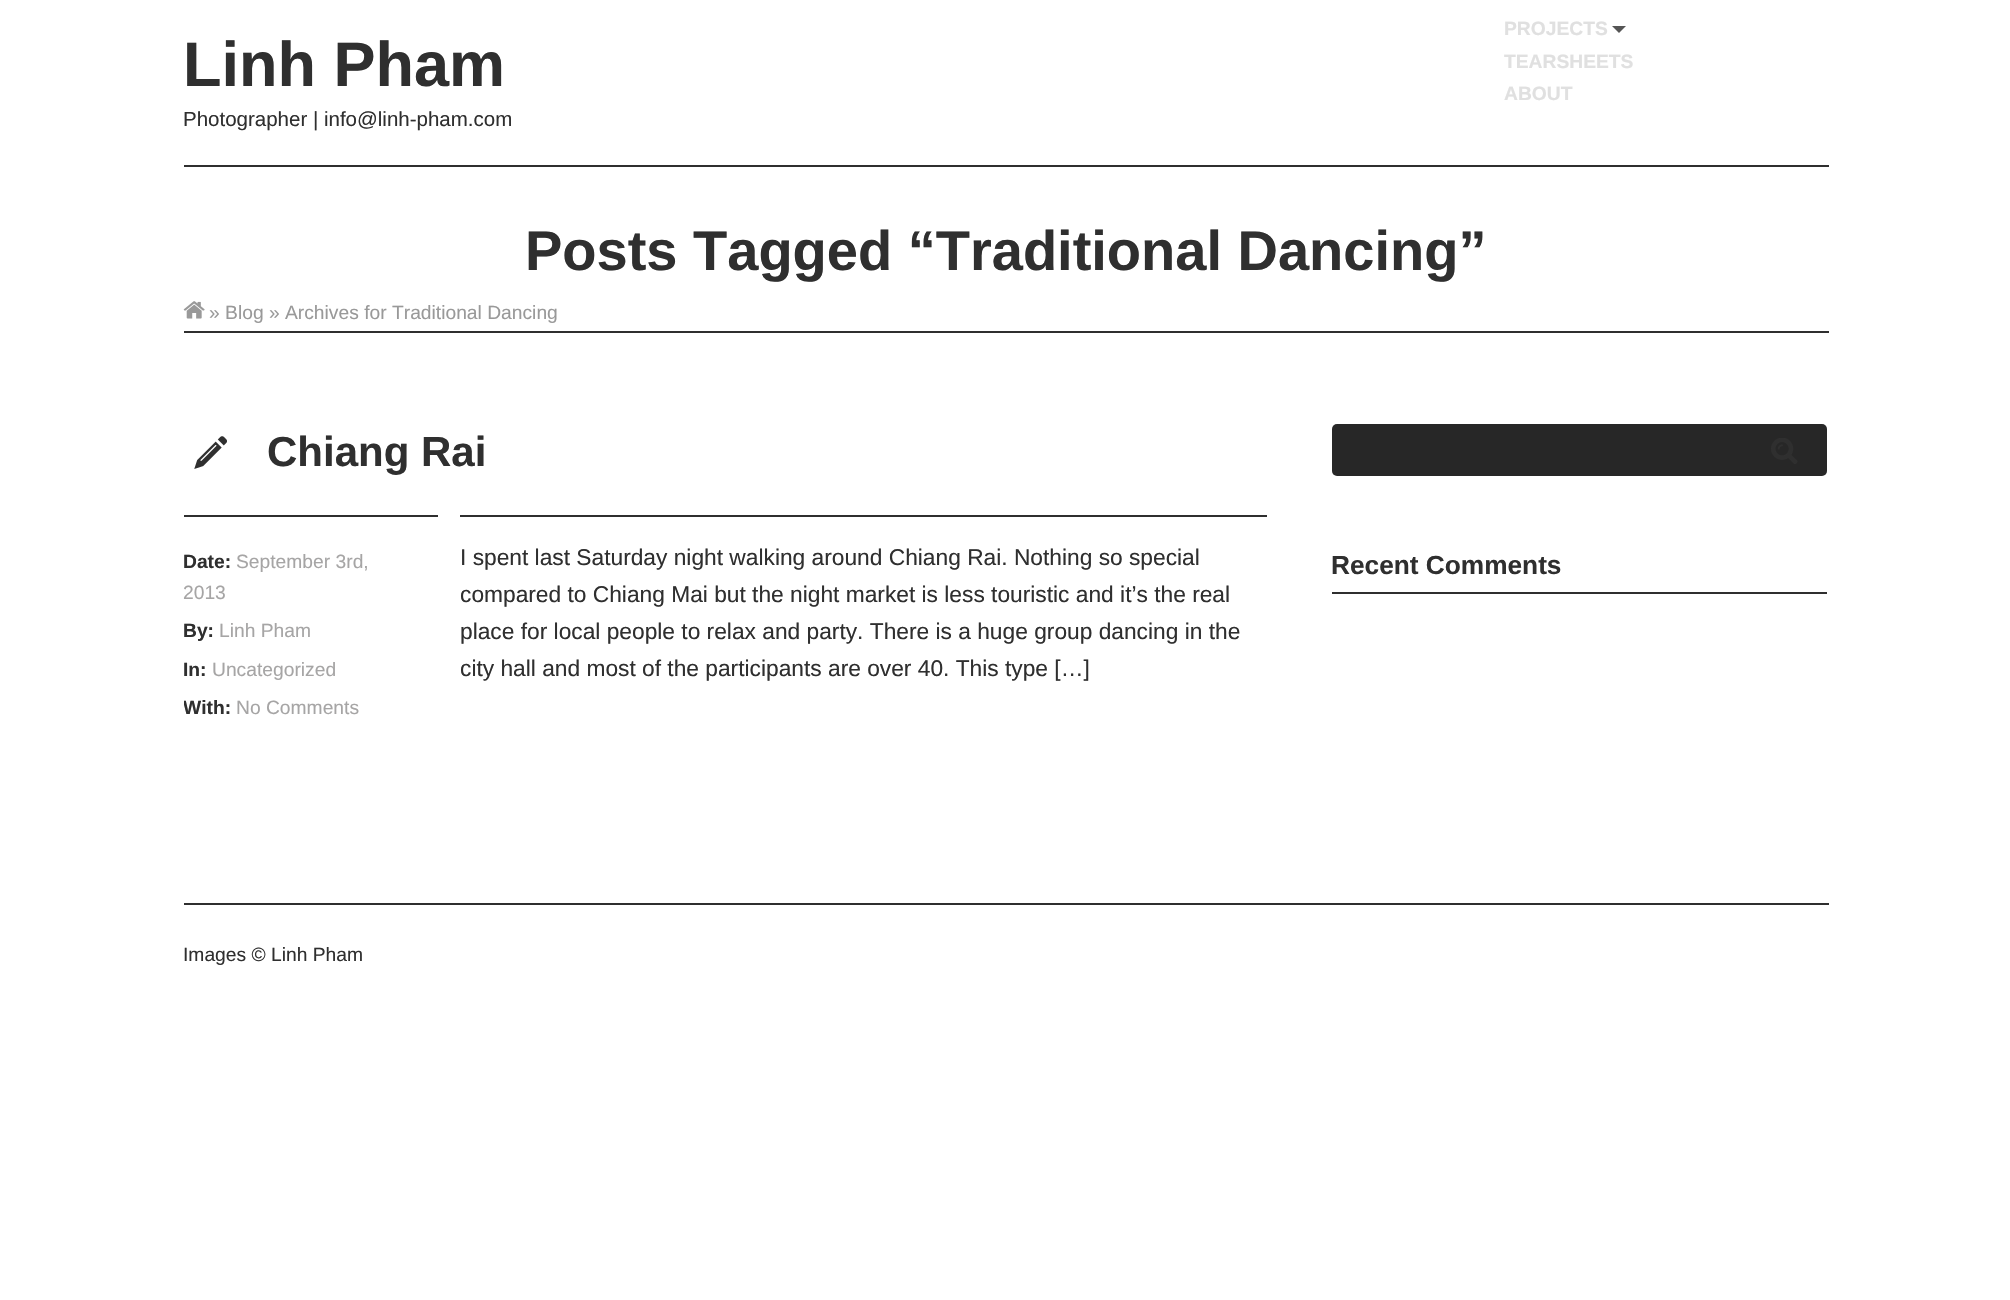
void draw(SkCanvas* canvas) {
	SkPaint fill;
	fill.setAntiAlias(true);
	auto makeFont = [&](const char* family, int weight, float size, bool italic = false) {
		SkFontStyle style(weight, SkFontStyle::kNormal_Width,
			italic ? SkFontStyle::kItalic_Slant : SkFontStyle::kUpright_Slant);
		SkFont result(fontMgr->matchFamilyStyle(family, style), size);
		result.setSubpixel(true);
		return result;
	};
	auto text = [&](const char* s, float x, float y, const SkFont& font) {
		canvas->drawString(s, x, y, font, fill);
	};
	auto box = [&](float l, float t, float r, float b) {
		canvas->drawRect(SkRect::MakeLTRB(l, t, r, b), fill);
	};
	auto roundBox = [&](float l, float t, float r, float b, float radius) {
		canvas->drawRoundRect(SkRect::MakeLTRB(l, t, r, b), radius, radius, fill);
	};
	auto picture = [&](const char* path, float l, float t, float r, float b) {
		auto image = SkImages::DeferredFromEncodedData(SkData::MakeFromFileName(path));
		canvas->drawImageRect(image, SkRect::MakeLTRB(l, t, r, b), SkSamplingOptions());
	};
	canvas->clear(0xFFFFFFFF);
	fill.setColor(0xFF2F2F2F);
	box(184, 165, 1829, 167);
	fill.setColor(0xFF555555);
	canvas->drawPath(SkPathBuilder().moveTo(1612, 26).lineTo(1626, 26).lineTo(1619, 33).close().detach(), fill);
	fill.setColor(0xFF2F2F2F);
	box(184, 331, 1829, 333);
	picture("image0.png", 183, 301, 205, 319);
	picture("image1.png", 194, 436, 227, 469);
	box(184, 515, 438, 517);
	box(460, 515, 1267, 517);
	fill.setColor(0xFF272727);
	roundBox(1332, 424, 1827, 476, 5);
	picture("image2.png", 1771, 438, 1798, 464);
	fill.setColor(0xFF2F2F2F);
	box(1332, 592, 1827, 594);
	box(184, 903, 1829, 905);
	auto font1 = makeFont("Liberation Sans", 700, 63);
	text("Linh Pham", 183, 86, font1);
	auto font2 = makeFont("Liberation Sans", 400, 20.5f);
	text("Photographer | info@linh-pham.com", 183, 126, font2);
	auto font3 = makeFont("Liberation Sans", 700, 19.25f);
	fill.setColor(0xFFE0E0E0);
	text("PROJECTS", 1504, 35, font3);
	text("TEARSHEETS", 1504, 68, font3);
	text("ABOUT", 1504, 100, font3);
	auto font4 = makeFont("Liberation Sans", 700, 56);
	fill.setColor(0xFF2F2F2F);
	text("Posts Tagged “Traditional Dancing”", 525, 270, font4);
	auto font5 = makeFont("Liberation Sans", 400, 19.25f);
	fill.setColor(0xFF999999);
	text("» Blog » Archives for Traditional Dancing", 209, 319, font5);
	auto font6 = makeFont("Liberation Sans", 700, 42);
	fill.setColor(0xFF2F2F2F);
	text("Chiang Rai", 267, 466, font6);
	text("Date:", 183, 568, font3);
	fill.setColor(0xFFA6A5A5);
	text("September 3rd,", 236, 568, font5);
	text("2013", 183, 599, font5);
	fill.setColor(0xFF2F2F2F);
	text("By:", 183, 637, font3);
	fill.setColor(0xFFA6A5A5);
	text("Linh Pham", 219, 637, font5);
	fill.setColor(0xFF2F2F2F);
	text("In:", 183, 676, font3);
	fill.setColor(0xFFA6A5A5);
	text("Uncategorized", 212, 676, font5);
	canvas->save();
	canvas->clipRect(SkRect::MakeLTRB(184, 516, 438, 732));
	fill.setColor(0xFF2F2F2F);
	text("With:", 183, 714, font3);
	canvas->restore();
	fill.setColor(0xFFA6A5A5);
	text("No Comments", 236, 714, font5);
	auto font7 = makeFont("Liberation Sans", 400, 22.75f);
	fill.setColor(0xFF2F2F2F);
	text("I spent last Saturday night walking around Chiang Rai. Nothing so special", 460, 565, font7);
	text("compared to Chiang Mai but the night market is less touristic and it’s the real", 460, 602, font7);
	text("place for local people to relax and party. There is a huge group dancing in the", 460, 639, font7);
	text("city hall and most of the participants are over 40. This type […]", 460, 676, font7);
	auto font8 = makeFont("Liberation Sans", 700, 26.25f);
	text("Recent Comments", 1331, 574, font8);
	text("Images © Linh Pham", 183, 961, font5);
}
